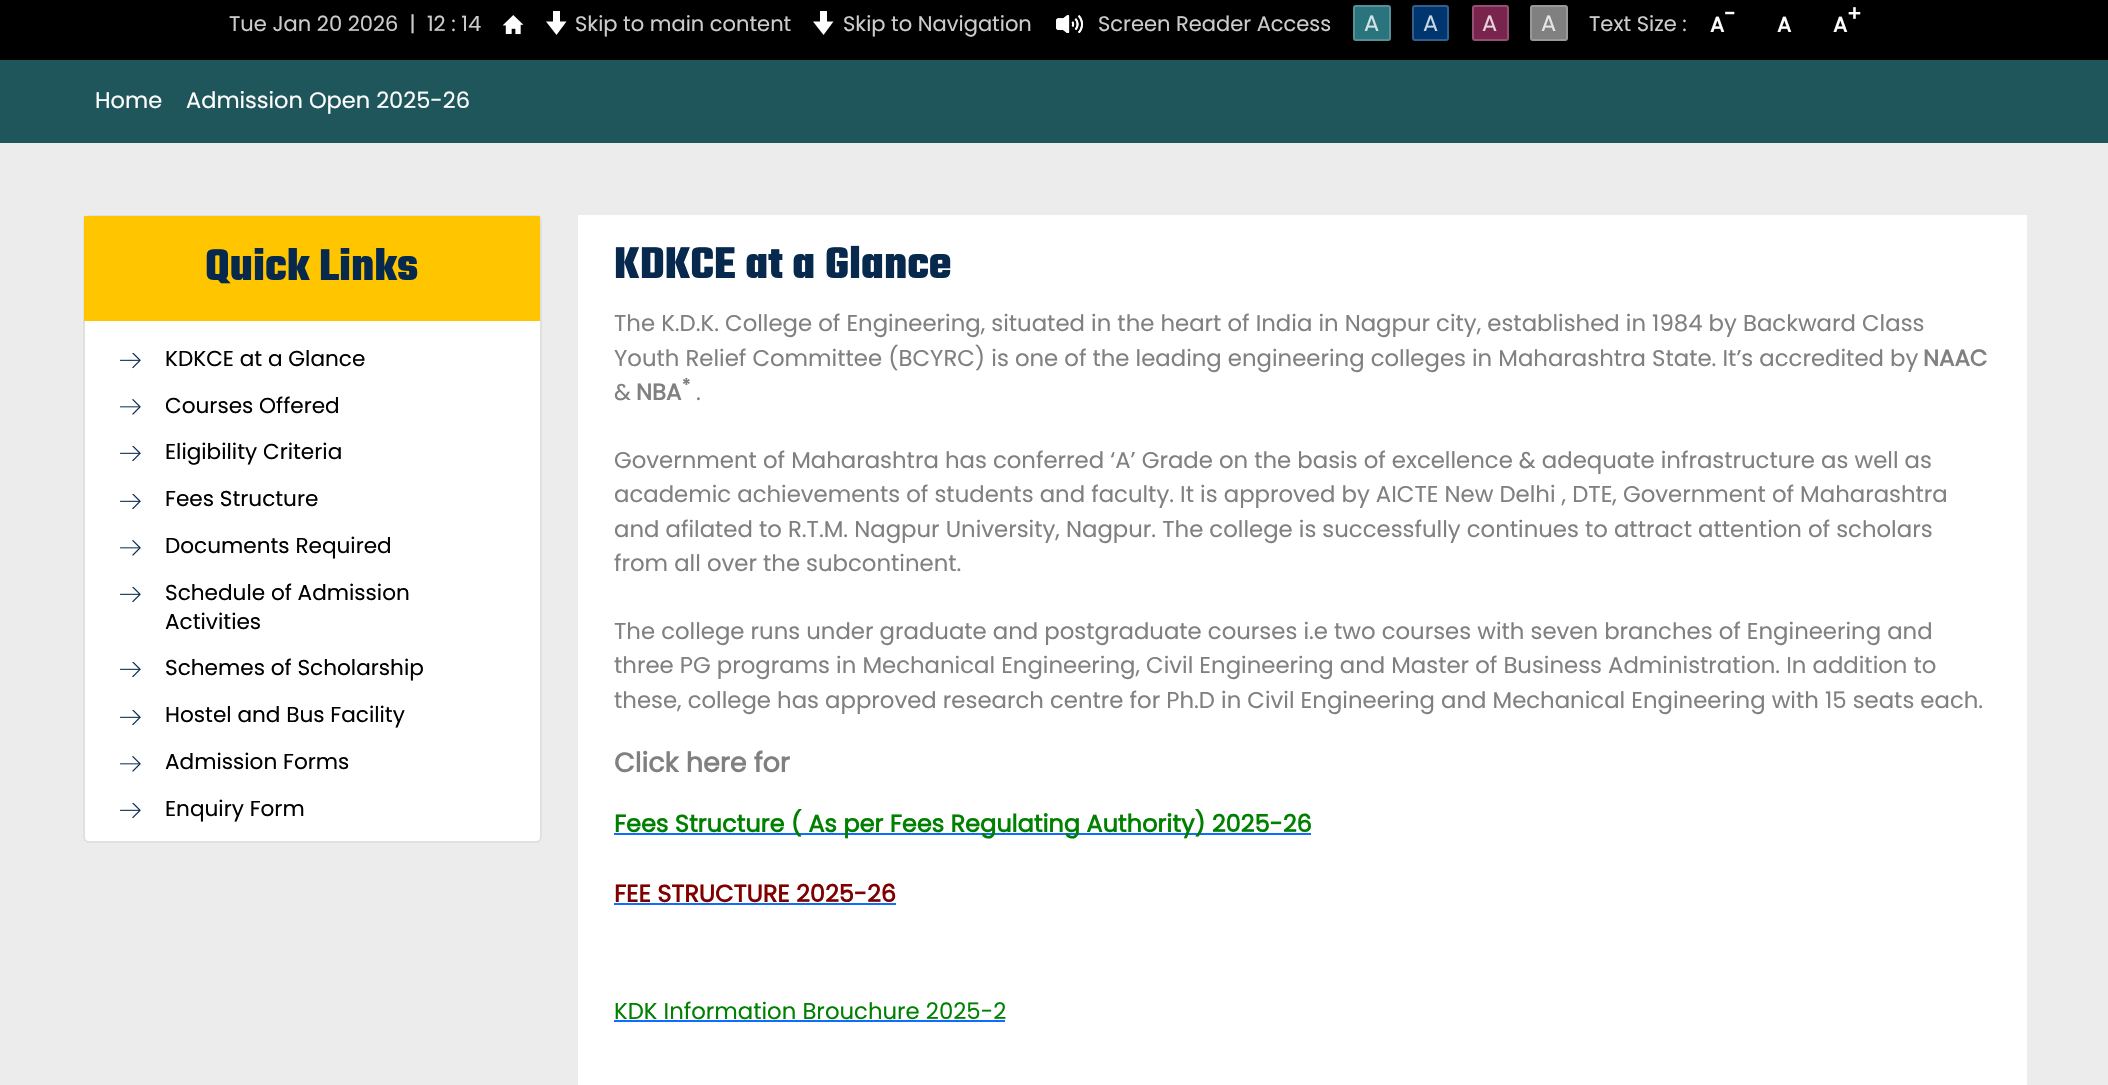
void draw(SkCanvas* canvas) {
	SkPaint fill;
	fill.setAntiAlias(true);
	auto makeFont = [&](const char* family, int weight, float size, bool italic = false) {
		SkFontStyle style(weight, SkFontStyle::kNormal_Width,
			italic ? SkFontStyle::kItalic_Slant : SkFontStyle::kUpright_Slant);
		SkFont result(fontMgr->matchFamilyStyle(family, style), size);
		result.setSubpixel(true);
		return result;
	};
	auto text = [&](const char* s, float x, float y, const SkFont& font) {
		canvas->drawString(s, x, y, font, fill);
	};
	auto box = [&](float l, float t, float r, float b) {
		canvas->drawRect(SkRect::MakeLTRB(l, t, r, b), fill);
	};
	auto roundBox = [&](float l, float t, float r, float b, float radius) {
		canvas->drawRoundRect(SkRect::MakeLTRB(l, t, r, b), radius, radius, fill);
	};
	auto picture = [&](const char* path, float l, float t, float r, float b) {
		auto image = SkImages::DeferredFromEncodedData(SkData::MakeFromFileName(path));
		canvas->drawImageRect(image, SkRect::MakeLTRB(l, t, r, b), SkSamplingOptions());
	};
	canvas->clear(0xFF000000);
	picture("image0.png", 503, 15, 524, 35);
	fill.setColor(0xFFFFFFFF);
	box(553, 11, 560, 24);
	canvas->drawPath(SkPathBuilder(SkPathFillType::kEvenOdd).moveTo(546, 21.5f).lineTo(556.5f, 35).lineTo(566.5f, 21.5f).close().detach(), fill);
	box(820, 11, 827, 24);
	canvas->drawPath(SkPathBuilder(SkPathFillType::kEvenOdd).moveTo(813, 21.5f).lineTo(823.5f, 35).lineTo(833.5f, 21.5f).close().detach(), fill);
	picture("image1.png", 1056, 15, 1083, 33);
	fill.setColor(0xFF2A757D);
	roundBox(1353, 5, 1391, 41, 3);
	fill.setStyle(SkPaint::kStroke_Style);
	fill.setStrokeWidth(2);
	fill.setColor(0x33FFFFFF);
	canvas->drawRoundRect(SkRect::MakeLTRB(1354, 6, 1390, 40), 2, 2, fill);
	fill.setStyle(SkPaint::kFill_Style);
	fill.setColor(0xFF00366F);
	roundBox(1412, 5, 1449, 41, 3);
	fill.setStyle(SkPaint::kStroke_Style);
	fill.setColor(0x33FFFFFF);
	canvas->drawRoundRect(SkRect::MakeLTRB(1413, 6, 1448, 40), 2, 2, fill);
	fill.setStyle(SkPaint::kFill_Style);
	fill.setColor(0xFF79244D);
	roundBox(1472, 5, 1509, 41, 3);
	fill.setStyle(SkPaint::kStroke_Style);
	fill.setColor(0x33FFFFFF);
	canvas->drawRoundRect(SkRect::MakeLTRB(1473, 6, 1508, 40), 2, 2, fill);
	fill.setStyle(SkPaint::kFill_Style);
	fill.setColor(0xFF808080);
	roundBox(1530, 5, 1568, 41, 3);
	fill.setStyle(SkPaint::kStroke_Style);
	fill.setColor(0x33FFFFFF);
	canvas->drawRoundRect(SkRect::MakeLTRB(1531, 6, 1567, 40), 2, 2, fill);
	fill.setStyle(SkPaint::kFill_Style);
	fill.setColor(0xFF1F565C);
	box(0, 60, 2108, 143);
	fill.setColor(0xFFECECEC);
	box(0, 143, 2108, 1085);
	fill.setColor(0xFFFFFFFF);
	roundBox(83, 215, 542, 843, 6);
	fill.setStyle(SkPaint::kStroke_Style);
	fill.setColor(0x1F000000);
	canvas->drawRoundRect(SkRect::MakeLTRB(84, 216, 541, 842), 5, 5, fill);
	fill.setStyle(SkPaint::kFill_Style);
	fill.setColor(0xFFFFC600);
	box(84, 216, 540, 321);
	picture("image2.png", 120, 353, 141, 369);
	picture("image3.png", 120, 399, 141, 415);
	picture("image2.png", 120, 446, 141, 462);
	picture("image2.png", 120, 494, 141, 510);
	picture("image3.png", 120, 540, 141, 556);
	picture("image2.png", 120, 587, 141, 603);
	picture("image2.png", 120, 662, 141, 678);
	picture("image2.png", 120, 710, 141, 726);
	picture("image3.png", 120, 756, 141, 772);
	picture("image2.png", 120, 803, 141, 819);
	fill.setColor(0xFFFFFFFF);
	box(578, 215, 2027, 1085);
	fill.setColor(0xFF0D6EFD);
	box(614, 833, 1311, 835);
	box(614, 903, 896, 905);
	box(614, 1020, 1005, 1022);
	auto font1 = makeFont("Poppins", 400, 21);
	fill.setColor(0xFFCCCCCC);
	text("Tue Jan 20 2026  |  12 : 14", 229, 31, font1);
	text("Skip to main content", 575, 31, font1);
	text("Skip to Navigation", 843, 31, font1);
	text("Screen Reader Access", 1098, 31, font1);
	auto font2 = makeFont("Poppins", 400, 22.5f);
	fill.setColor(0xFFD4E3E5);
	text("A", 1364, 31, font2);
	fill.setColor(0xFFCCD7E2);
	text("A", 1423, 31, font2);
	fill.setColor(0xFFE4D3DB);
	text("A", 1482, 31, font2);
	fill.setColor(0xFFE6E6E6);
	text("A", 1541, 31, font2);
	fill.setColor(0xFFCCCCCC);
	text("Text Size :", 1589, 31, font1);
	auto font3 = makeFont("Poppins", 700, 21);
	fill.setColor(0xFFFFFFFF);
	text("-", 1724, 21, font3);
	text("A", 1710, 32, font3);
	text("A", 1777, 32, font3);
	text("+", 1847, 21, font3);
	text("A", 1833, 32, font3);
	text("Home", 95, 108, font2);
	text("Admission Open 2025-26", 186, 108, font2);
	auto font4 = makeFont("Teko", 300, 48);
	fill.setColor(0xFF07294D);
	text("Quick Links", 205, 280, font4);
	auto font5 = makeFont("Poppins", 400, 21.6f);
	fill.setColor(0xFF000000);
	text("KDKCE at a Glance", 165, 366, font5);
	text("Courses Offered", 165, 413, font5);
	text("Eligibility Criteria", 165, 459, font5);
	text("Fees Structure", 165, 506, font5);
	text("Documents Required", 165, 553, font5);
	text("Schedule of Admission", 165, 600, font5);
	text("Activities", 165, 629, font5);
	text("Schemes of Scholarship", 165, 675, font5);
	text("Hostel and Bus Facility", 165, 722, font5);
	text("Admission Forms", 165, 769, font5);
	text("Enquiry Form", 165, 816, font5);
	fill.setColor(0xFF07294D);
	text("KDKCE at a Glance", 614, 278, font4);
	auto font6 = makeFont("Poppins", 400, 22.8f);
	fill.setColor(0xFF808080);
	text("The K.D.K. College of Engineering, situated in the heart of India in Nagpur city, established in 1984 by Backward Class", 614, 331, font6);
	text("Youth Relief Committee (BCYRC) is one of the leading engineering colleges in Maharashtra State. It’s accredited by", 614, 366, font6);
	auto font7 = makeFont("Poppins", 700, 22.8f);
	text("NAAC", 1923, 366, font7);
	auto font8 = makeFont("Poppins", 700, 17);
	text("*", 682, 391, font8);
	text("&", 614, 400, font6);
	text("NBA", 636, 400, font7);
	text(".", 696, 400, font6);
	text("Government of Maharashtra has conferred ‘A’ Grade on the basis of excellence & adequate infrastructure as well as", 614, 468, font6);
	text("academic achievements of students and faculty. It is approved by AICTE New Delhi , DTE, Government of Maharashtra", 614, 502, font6);
	text("and afilated to R.T.M. Nagpur University, Nagpur. The college is successfully continues to attract attention of scholars", 614, 537, font6);
	text("from all over the subcontinent.", 614, 571, font6);
	text("The college runs under graduate and postgraduate courses i.e two courses with seven branches of Engineering and", 614, 639, font6);
	text("three PG programs in Mechanical Engineering, Civil Engineering and Master of Business Administration. In addition to", 614, 673, font6);
	text("these, college has approved research centre for Ph.D in Civil Engineering and Mechanical Engineering with 15 seats each.", 614, 708, font6);
	auto font9 = makeFont("Poppins", 700, 27);
	text("Click here for", 614, 772, font9);
	auto font10 = makeFont("Poppins", 700, 24);
	fill.setColor(0xFF008000);
	text("Fees Structure ( As per Fees Regulating Authority) 2025-26", 614, 832, font10);
	fill.setColor(0xFF800000);
	text("FEE STRUCTURE 2025-26", 614, 902, font10);
	fill.setColor(0xFF008000);
	text("KDK Information Brouchure 2025-2", 614, 1019, font6);
}
